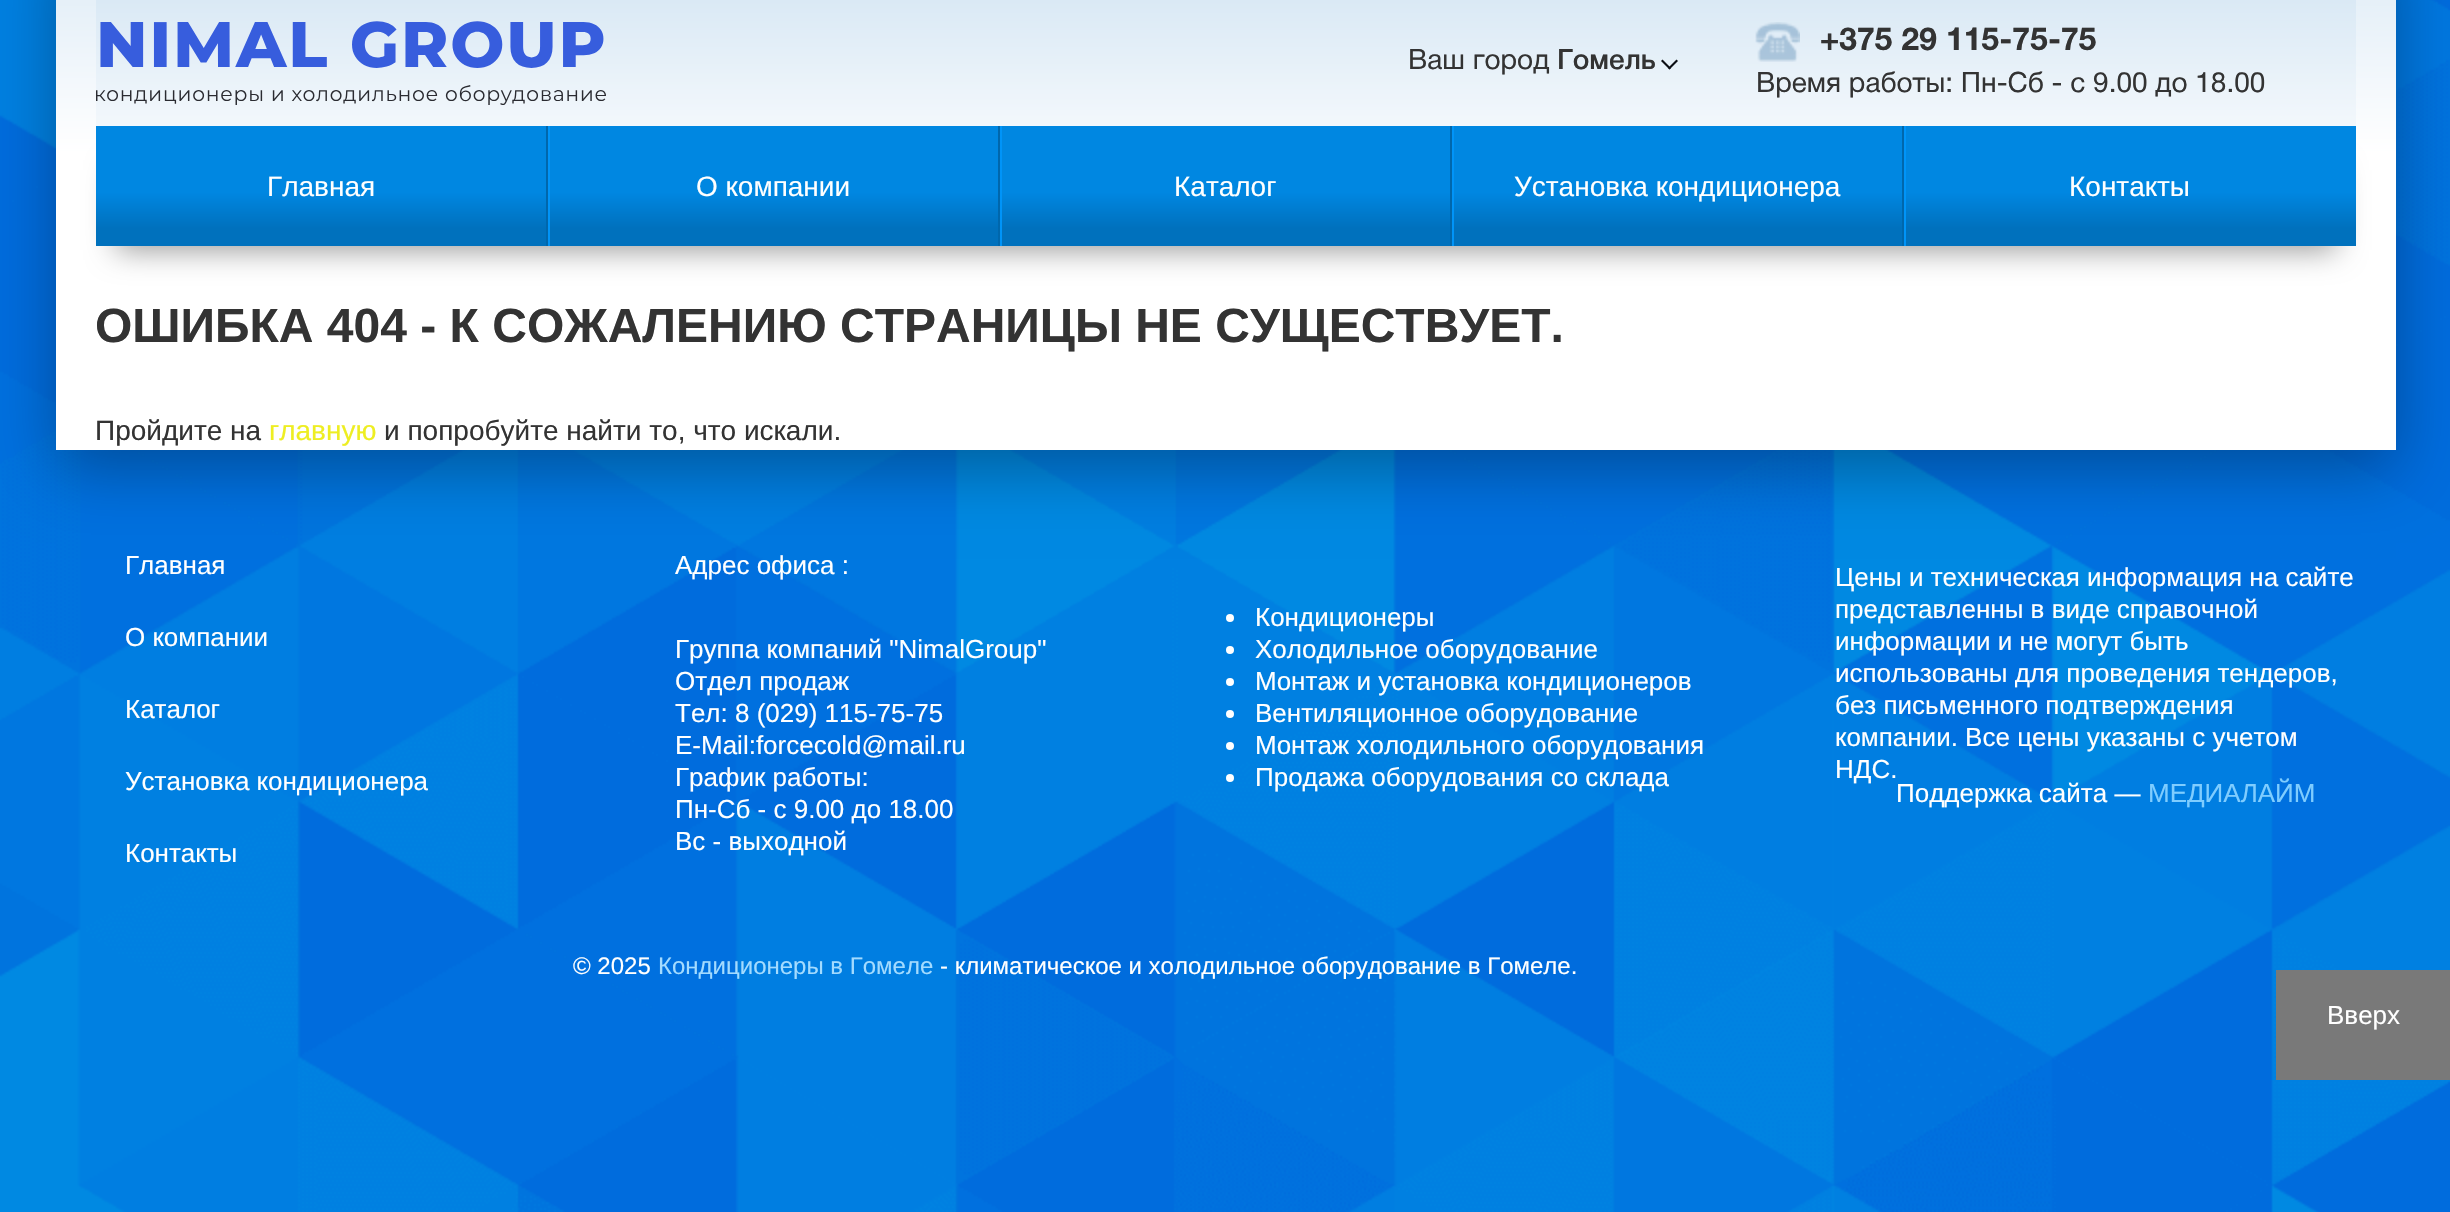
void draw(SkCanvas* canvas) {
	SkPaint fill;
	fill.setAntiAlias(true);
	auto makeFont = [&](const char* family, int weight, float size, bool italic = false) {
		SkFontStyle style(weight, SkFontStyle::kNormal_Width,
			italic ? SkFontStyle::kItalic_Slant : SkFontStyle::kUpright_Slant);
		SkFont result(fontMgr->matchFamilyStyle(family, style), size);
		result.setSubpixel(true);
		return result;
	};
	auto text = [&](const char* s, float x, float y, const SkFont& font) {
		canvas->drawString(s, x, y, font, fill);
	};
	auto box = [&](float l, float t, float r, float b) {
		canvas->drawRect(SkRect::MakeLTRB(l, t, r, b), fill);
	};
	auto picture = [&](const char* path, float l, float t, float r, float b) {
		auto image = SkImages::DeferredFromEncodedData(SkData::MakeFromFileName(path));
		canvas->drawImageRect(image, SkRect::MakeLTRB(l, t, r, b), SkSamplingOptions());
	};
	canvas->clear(0xFFFFFFFF);
	picture("image0.png", 0, 0, 2450, 1212);
	fill.setColor(0x4D000000);
	fill.setMaskFilter(SkMaskFilter::MakeBlur(kNormal_SkBlurStyle, 30));
	canvas->drawRect(SkRect::MakeLTRB(56, -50, 2396, 470), fill);
	fill.setMaskFilter(nullptr);
	fill.setColor(0xFFFFFFFF);
	box(56, 250, 2396, 450);
	{
		const SkColor colors[] = {0xFFDAE9F5, 0xFFFFFFFF, 0xFFFFFFFF};
		const float stops[] = {0, 0.7f, 1};
		const SkPoint ends[] = {{1226, -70}, {1226, 250}};
		fill.setShader(SkGradientShader::MakeLinear(ends, colors, stops, 3, SkTileMode::kClamp));
		fill.setAlpha(255);
	}
	box(56, 0, 2396, 250);
	{
		const SkColor colors[] = {0xFFDAE9F5, 0xFFFFFFFF, 0xFFFFFFFF};
		const float stops[] = {0, 0.7f, 1};
		const SkPoint ends[] = {{1226, 0}, {1226, 270}};
		fill.setShader(SkGradientShader::MakeLinear(ends, colors, stops, 3, SkTileMode::kClamp));
		fill.setAlpha(255);
	}
	box(96, 0, 2356, 176);
	picture("image1.png", 96, 21, 606, 105);
	fill.setShader(nullptr);
	fill.setColor(0xFF0B0D13);
	canvas->drawPath(SkPathBuilder().moveTo(1676.5f, 59.5f).lineTo(1678, 61).lineTo(1669.5f, 69.5f).lineTo(1668, 68).close().detach(), fill);
	canvas->drawPath(SkPathBuilder().moveTo(1662.5f, 59.5f).lineTo(1671, 68).lineTo(1669.5f, 69.5f).lineTo(1661, 61).close().detach(), fill);
	picture("image2.png", 1755, 22, 1800, 62);
	fill.setColor(0x66000000);
	fill.setMaskFilter(SkMaskFilter::MakeBlur(kNormal_SkBlurStyle, 15));
	canvas->drawRect(SkRect::MakeLTRB(116, 170, 2336, 250), fill);
	fill.setMaskFilter(nullptr);
	{
		const SkColor colors[] = {0xFF0087E1, 0xFF0071BD};
		const float stops[] = {0.55f, 0.85f};
		const SkPoint ends[] = {{1226, 126}, {1226, 246}};
		fill.setShader(SkGradientShader::MakeLinear(ends, colors, stops, 2, SkTileMode::kClamp));
		fill.setAlpha(255);
	}
	box(96, 126, 2356, 246);
	fill.setShader(nullptr);
	fill.setColor(0xFF0067AC);
	box(546, 126, 548, 246);
	fill.setColor(0xFF0094F8);
	box(548, 126, 550, 246);
	fill.setColor(0xFF0067AC);
	box(998, 126, 1000, 246);
	fill.setColor(0xFF0094F8);
	box(1000, 126, 1002, 246);
	fill.setColor(0xFF0067AC);
	box(1450, 126, 1452, 246);
	fill.setColor(0xFF0094F8);
	box(1452, 126, 1454, 246);
	fill.setColor(0xFF0067AC);
	box(1902, 126, 1904, 246);
	fill.setColor(0xFF0094F8);
	box(1904, 126, 1906, 246);
	fill.setColor(0xFFFFFFFF);
	canvas->drawCircle(1230, 618, 4, fill);
	canvas->drawCircle(1230, 650, 4, fill);
	canvas->drawCircle(1230, 682, 4, fill);
	canvas->drawCircle(1230, 714, 4, fill);
	canvas->drawCircle(1230, 746, 4, fill);
	canvas->drawCircle(1230, 778, 4, fill);
	fill.setColor(0xFF797979);
	box(2276, 970, 2450, 1080);
	auto font1 = makeFont("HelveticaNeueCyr", 400, 28);
	fill.setColor(0xFF333333);
	text("Ваш город", 1408, 69, font1);
	auto font2 = makeFont("HelveticaNeueCyr", 500, 28);
	text("Гомель", 1557, 69, font2);
	auto font3 = makeFont("HelveticaNeueCyr", 700, 32);
	text("+375 29 115-75-75", 1820, 50, font3);
	text("Время работы: Пн-Сб - с 9.00 до 18.00", 1756, 92, font1);
	auto font4 = makeFont("Liberation Sans", 400, 28);
	fill.setColor(0xFFFFFFFF);
	text("Главная", 267, 196, font4);
	text("О компании", 696, 196, font4);
	text("Каталог", 1174, 196, font4);
	text("Установка кондиционера", 1514, 196, font4);
	text("Контакты", 2069, 196, font4);
	auto font5 = makeFont("Liberation Sans", 700, 48);
	fill.setColor(0xFF333333);
	text("ОШИБКА 404 - К СОЖАЛЕНИЮ СТРАНИЦЫ НЕ СУЩЕСТВУЕТ.", 95, 342, font5);
	text("Пройдите на", 95, 440, font4);
	fill.setColor(0xFFEEEE22);
	text("главную", 269, 440, font4);
	fill.setColor(0xFF333333);
	text("и попробуйте найти то, что искали.", 384, 440, font4);
	auto font6 = makeFont("Liberation Sans", 400, 26);
	fill.setColor(0xFFFFFFFF);
	text("Главная", 125, 574, font6);
	text("О компании", 125, 646, font6);
	text("Каталог", 125, 718, font6);
	text("Установка кондиционера", 125, 790, font6);
	text("Контакты", 125, 862, font6);
	text("Адрес офиса :", 675, 574, font6);
	text("Группа компаний \"NimalGroup\"", 675, 658, font6);
	text("Отдел продаж", 675, 690, font6);
	text("Тел: 8 (029) 115-75-75", 675, 722, font6);
	text("E-Mail:forcecold@mail.ru", 675, 754, font6);
	text("График работы:", 675, 786, font6);
	text("Пн-Сб - с 9.00 до 18.00", 675, 818, font6);
	text("Вс - выходной", 675, 850, font6);
	text("Кондиционеры", 1255, 626, font6);
	text("Холодильное оборудование", 1255, 658, font6);
	text("Монтаж и установка кондиционеров", 1255, 690, font6);
	text("Вентиляционное оборудование", 1255, 722, font6);
	text("Монтаж холодильного оборудования", 1255, 754, font6);
	text("Продажа оборудования со склада", 1255, 786, font6);
	text("Цены и техническая информация на сайте", 1835, 586, font6);
	text("представленны в виде справочной", 1835, 618, font6);
	text("информации и не могут быть", 1835, 650, font6);
	text("использованы для проведения тендеров,", 1835, 682, font6);
	text("без письменного подтверждения", 1835, 714, font6);
	text("компании. Все цены указаны с учетом", 1835, 746, font6);
	text("НДС.", 1835, 778, font6);
	text("Поддержка сайта —", 1896, 802, font6);
	fill.setColor(0xFF7FCDFF);
	text("МЕДИАЛАЙМ", 2148, 802, font6);
	fill.setColor(0xFFFFFFFF);
	text("Вверх", 2327, 1024, font6);
	auto font7 = makeFont("Liberation Sans", 400, 24);
	text("© 2025", 573, 974, font7);
	fill.setColor(0xFFA3DBFF);
	text("Кондиционеры в Гомеле", 658, 974, font7);
	fill.setColor(0xFFFFFFFF);
	text("- климатическое и холодильное оборудование в Гомеле.", 940, 974, font7);
}
